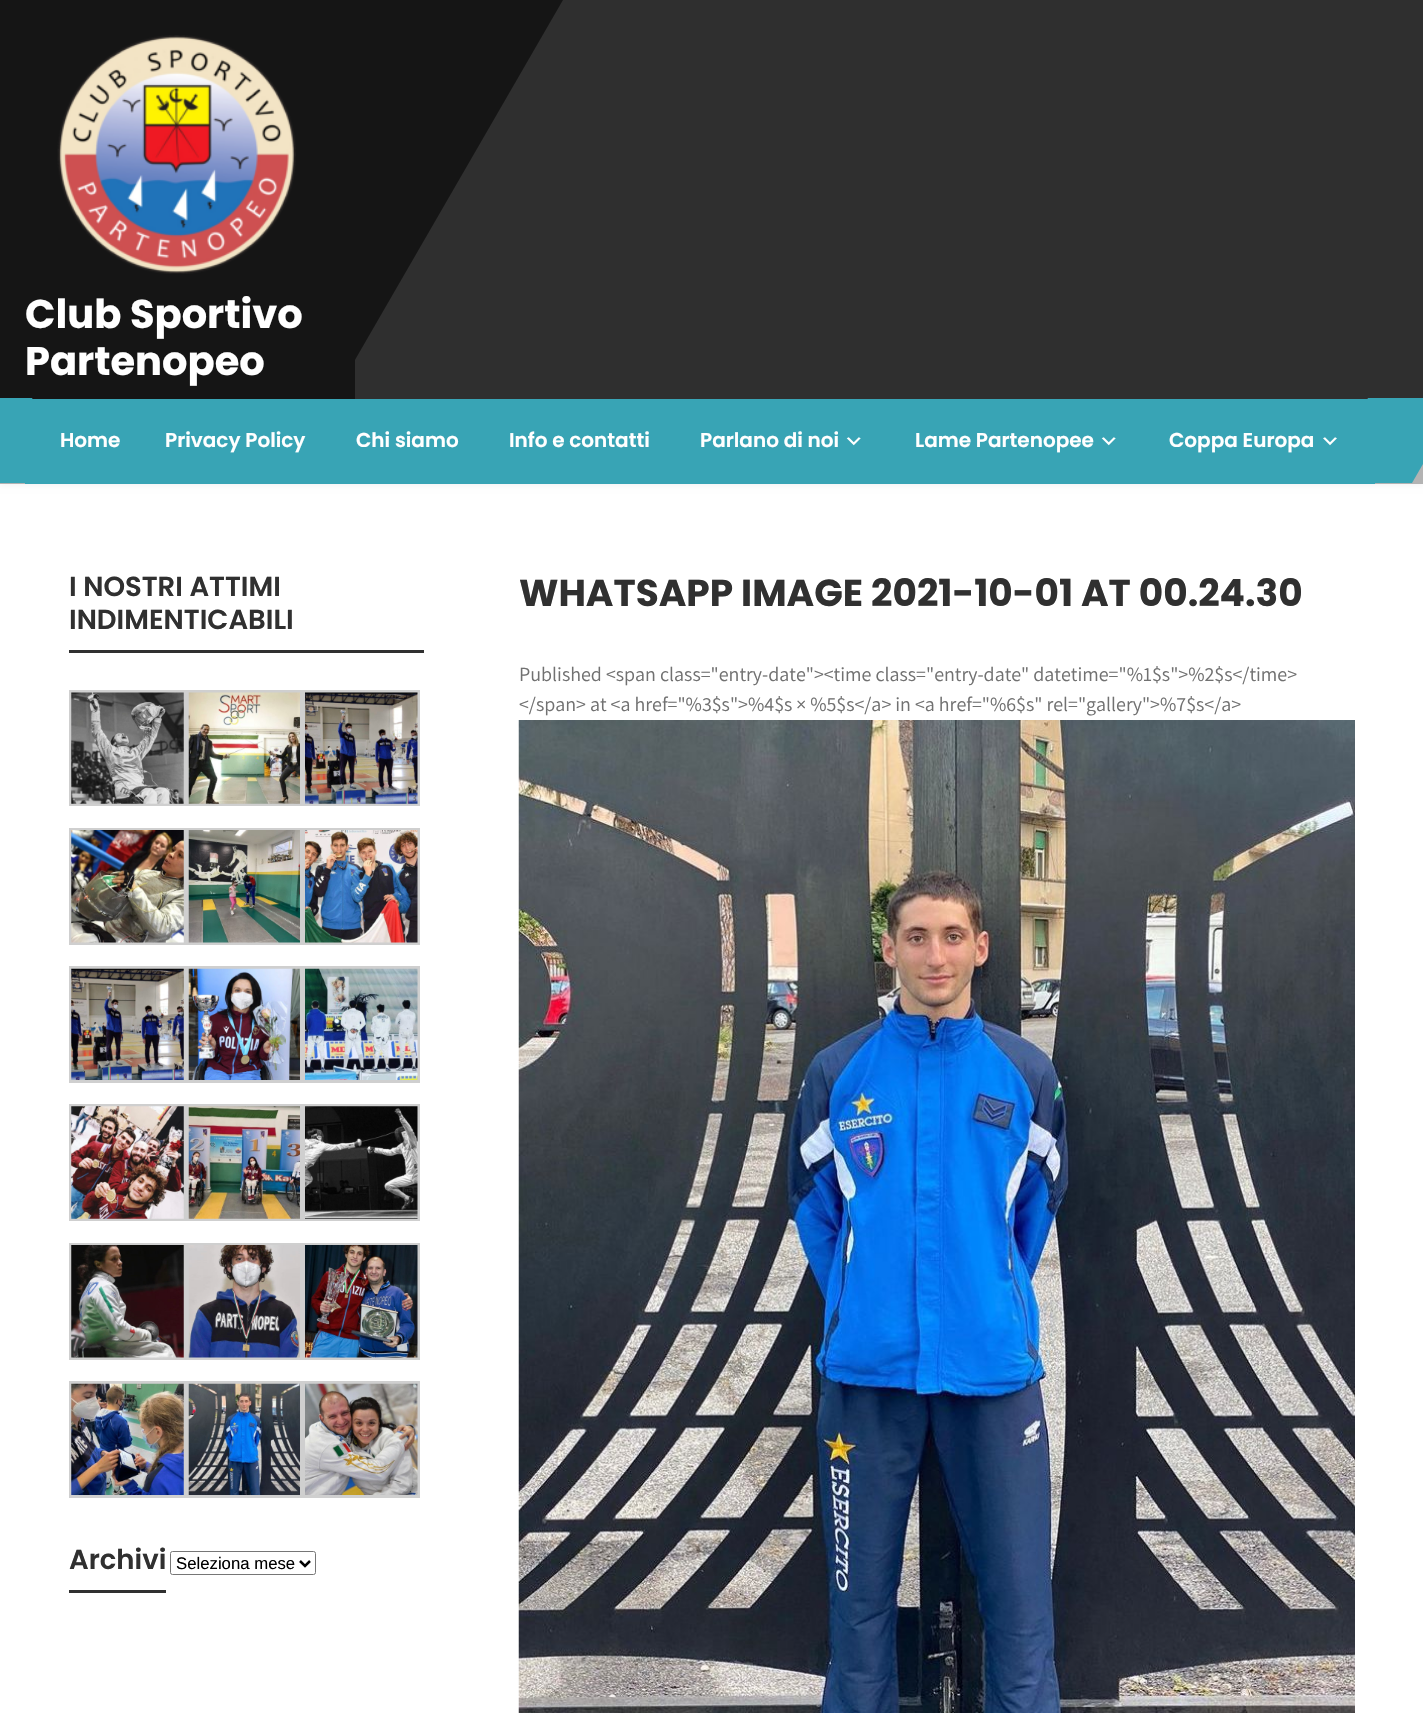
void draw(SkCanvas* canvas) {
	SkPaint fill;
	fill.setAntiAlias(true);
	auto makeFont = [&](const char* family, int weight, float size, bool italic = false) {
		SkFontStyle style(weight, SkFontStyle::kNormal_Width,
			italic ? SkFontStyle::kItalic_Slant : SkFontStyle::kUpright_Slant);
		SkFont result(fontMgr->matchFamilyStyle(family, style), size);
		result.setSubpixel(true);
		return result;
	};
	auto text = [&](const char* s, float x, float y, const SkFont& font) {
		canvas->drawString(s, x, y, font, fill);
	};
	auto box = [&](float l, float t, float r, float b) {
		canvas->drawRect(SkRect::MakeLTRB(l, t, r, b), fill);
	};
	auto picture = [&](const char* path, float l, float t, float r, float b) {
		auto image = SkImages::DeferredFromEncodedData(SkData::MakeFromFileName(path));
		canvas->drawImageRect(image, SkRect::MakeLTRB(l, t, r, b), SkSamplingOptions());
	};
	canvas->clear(0xFFFFFFFF);
	fill.setColor(0xFFF2F2F3);
	fill.setMaskFilter(SkMaskFilter::MakeBlur(kNormal_SkBlurStyle, 3));
	canvas->drawRect(SkRect::MakeLTRB(0, 1, 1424, 485), fill);
	fill.setMaskFilter(nullptr);
	fill.setColor(0xFFB3B3B3);
	box(0, 464, 1423, 484);
	fill.setColor(0xFF2F2F2F);
	box(355, 0, 1423, 399);
	fill.setColor(0xFF151515);
	box(39, 0, 355, 399);
	canvas->drawPath(SkPathBuilder().moveTo(234, 0).lineTo(563, 0).lineTo(333, 398).lineTo(4, 398).close().detach(), fill);
	box(0, 0, 39, 399);
	picture("image0.png", 57, 35, 296, 274);
	fill.setColor(0xFF38A4B5);
	box(25, 399, 1375, 484);
	canvas->drawPath(SkPathBuilder().moveTo(-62, 398).lineTo(32, 398).lineTo(81, 483).lineTo(-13, 483).close().detach(), fill);
	picture("image1.png", 846, 437, 861, 446);
	picture("image1.png", 1101, 437, 1116, 446);
	canvas->drawPath(SkPathBuilder().moveTo(1368, 398).lineTo(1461, 398).lineTo(1412, 483).lineTo(1319, 483).close().detach(), fill);
	picture("image2.png", 1323, 437, 1337, 446);
	fill.setColor(0xFF303030);
	box(69, 650, 424, 653);
	fill.setStyle(SkPaint::kStroke_Style);
	fill.setStrokeWidth(3);
	fill.setColor(0xFFCFCFCF);
	canvas->drawRect(SkRect::MakeLTRB(70.5f, 691.5f, 184.5f, 804.5f), fill);
	picture("image3.png", 71, 692, 184, 804);
	canvas->drawRect(SkRect::MakeLTRB(187.5f, 691.5f, 301.5f, 804.5f), fill);
	picture("image4.png", 188, 692, 300, 804);
	canvas->drawRect(SkRect::MakeLTRB(304.5f, 691.5f, 418.5f, 804.5f), fill);
	picture("image5.png", 305, 692, 418, 804);
	canvas->drawRect(SkRect::MakeLTRB(70.5f, 829.5f, 184.5f, 943.5f), fill);
	picture("image6.png", 71, 830, 184, 943);
	canvas->drawRect(SkRect::MakeLTRB(187.5f, 829.5f, 301.5f, 943.5f), fill);
	picture("image7.png", 188, 830, 300, 943);
	canvas->drawRect(SkRect::MakeLTRB(304.5f, 829.5f, 418.5f, 943.5f), fill);
	picture("image8.png", 305, 830, 418, 943);
	canvas->drawRect(SkRect::MakeLTRB(70.5f, 967.5f, 184.5f, 1081.5f), fill);
	picture("image9.png", 71, 968, 184, 1080);
	canvas->drawRect(SkRect::MakeLTRB(187.5f, 967.5f, 301.5f, 1081.5f), fill);
	picture("image10.png", 188, 968, 300, 1080);
	canvas->drawRect(SkRect::MakeLTRB(304.5f, 967.5f, 418.5f, 1081.5f), fill);
	picture("image11.png", 305, 968, 418, 1080);
	canvas->drawRect(SkRect::MakeLTRB(70.5f, 1105.5f, 184.5f, 1219.5f), fill);
	picture("image12.png", 71, 1106, 184, 1219);
	canvas->drawRect(SkRect::MakeLTRB(187.5f, 1105.5f, 301.5f, 1219.5f), fill);
	picture("image13.png", 188, 1106, 300, 1219);
	canvas->drawRect(SkRect::MakeLTRB(304.5f, 1105.5f, 418.5f, 1219.5f), fill);
	picture("image14.png", 305, 1106, 418, 1219);
	canvas->drawRect(SkRect::MakeLTRB(70.5f, 1244.5f, 184.5f, 1358.5f), fill);
	picture("image15.png", 71, 1245, 184, 1358);
	canvas->drawRect(SkRect::MakeLTRB(187.5f, 1244.5f, 301.5f, 1358.5f), fill);
	picture("image16.png", 188, 1245, 300, 1358);
	canvas->drawRect(SkRect::MakeLTRB(304.5f, 1244.5f, 418.5f, 1358.5f), fill);
	picture("image17.png", 305, 1245, 418, 1358);
	canvas->drawRect(SkRect::MakeLTRB(70.5f, 1382.5f, 184.5f, 1496.5f), fill);
	picture("image18.png", 71, 1383, 184, 1495);
	canvas->drawRect(SkRect::MakeLTRB(187.5f, 1382.5f, 301.5f, 1496.5f), fill);
	picture("image19.png", 188, 1383, 300, 1495);
	canvas->drawRect(SkRect::MakeLTRB(304.5f, 1382.5f, 418.5f, 1496.5f), fill);
	picture("image20.png", 305, 1383, 418, 1495);
	fill.setStyle(SkPaint::kFill_Style);
	fill.setColor(0xFF303030);
	box(69, 1590, 166, 1593);
	fill.setStyle(SkPaint::kStroke_Style);
	fill.setStrokeWidth(1);
	fill.setColor(0xFF767676);
	canvas->drawRoundRect(SkRect::MakeLTRB(170.5f, 1551.5f, 315.5f, 1574.5f), 2, 2, fill);
	fill.setStrokeWidth(2.5f);
	fill.setColor(0xFF000000);
	canvas->drawPath(SkPathBuilder().moveTo(300, 1561).lineTo(305, 1566).lineTo(310, 1561).detach(), fill);
	picture("image21.png", 518, 720, 1355, 1713);
	auto font1 = makeFont("Poppins", 700, 40);
	fill.setStyle(SkPaint::kFill_Style);
	fill.setColor(0xFFFFFFFF);
	text("Club Sportivo", 25, 328, font1);
	text("Partenopeo", 25, 375, font1);
	auto font2 = makeFont("Poppins", 600, 20);
	text("Home", 60, 447, font2);
	text("Privacy Policy", 165, 447, font2);
	text("Chi siamo", 356, 447, font2);
	text("Info e contatti", 509, 447, font2);
	text("Parlano di noi", 700, 447, font2);
	text("Lame Partenopee", 915, 447, font2);
	text("Coppa Europa", 1169, 447, font2);
	auto font3 = makeFont("Poppins", 600, 27.5f);
	fill.setColor(0xFF303030);
	text("I NOSTRI ATTIMI", 69, 596, font3);
	text("INDIMENTICABILI", 69, 629, font3);
	text("Archivi", 69, 1569, font3);
	auto font4 = makeFont("Liberation Sans", 400, 16.75f);
	fill.setColor(0xFF000000);
	text("Seleziona mese", 176, 1569, font4);
	auto font5 = makeFont("Poppins", 700, 37.5f);
	fill.setColor(0xFF303030);
	text("WHATSAPP IMAGE 2021-10-01 AT 00.24.30", 519, 606, font5);
	auto font6 = makeFont("Assistant", 400, 20);
	fill.setColor(0xFF717171);
	text("Published <span class=\"entry-date\"><time class=\"entry-date\" datetime=\"%1$s\">%2$s</time>", 519, 681, font6);
	text("</span> at <a href=\"%3$s\">%4$s × %5$s</a> in <a href=\"%6$s\" rel=\"gallery\">%7$s</a>", 519, 711, font6);
}
